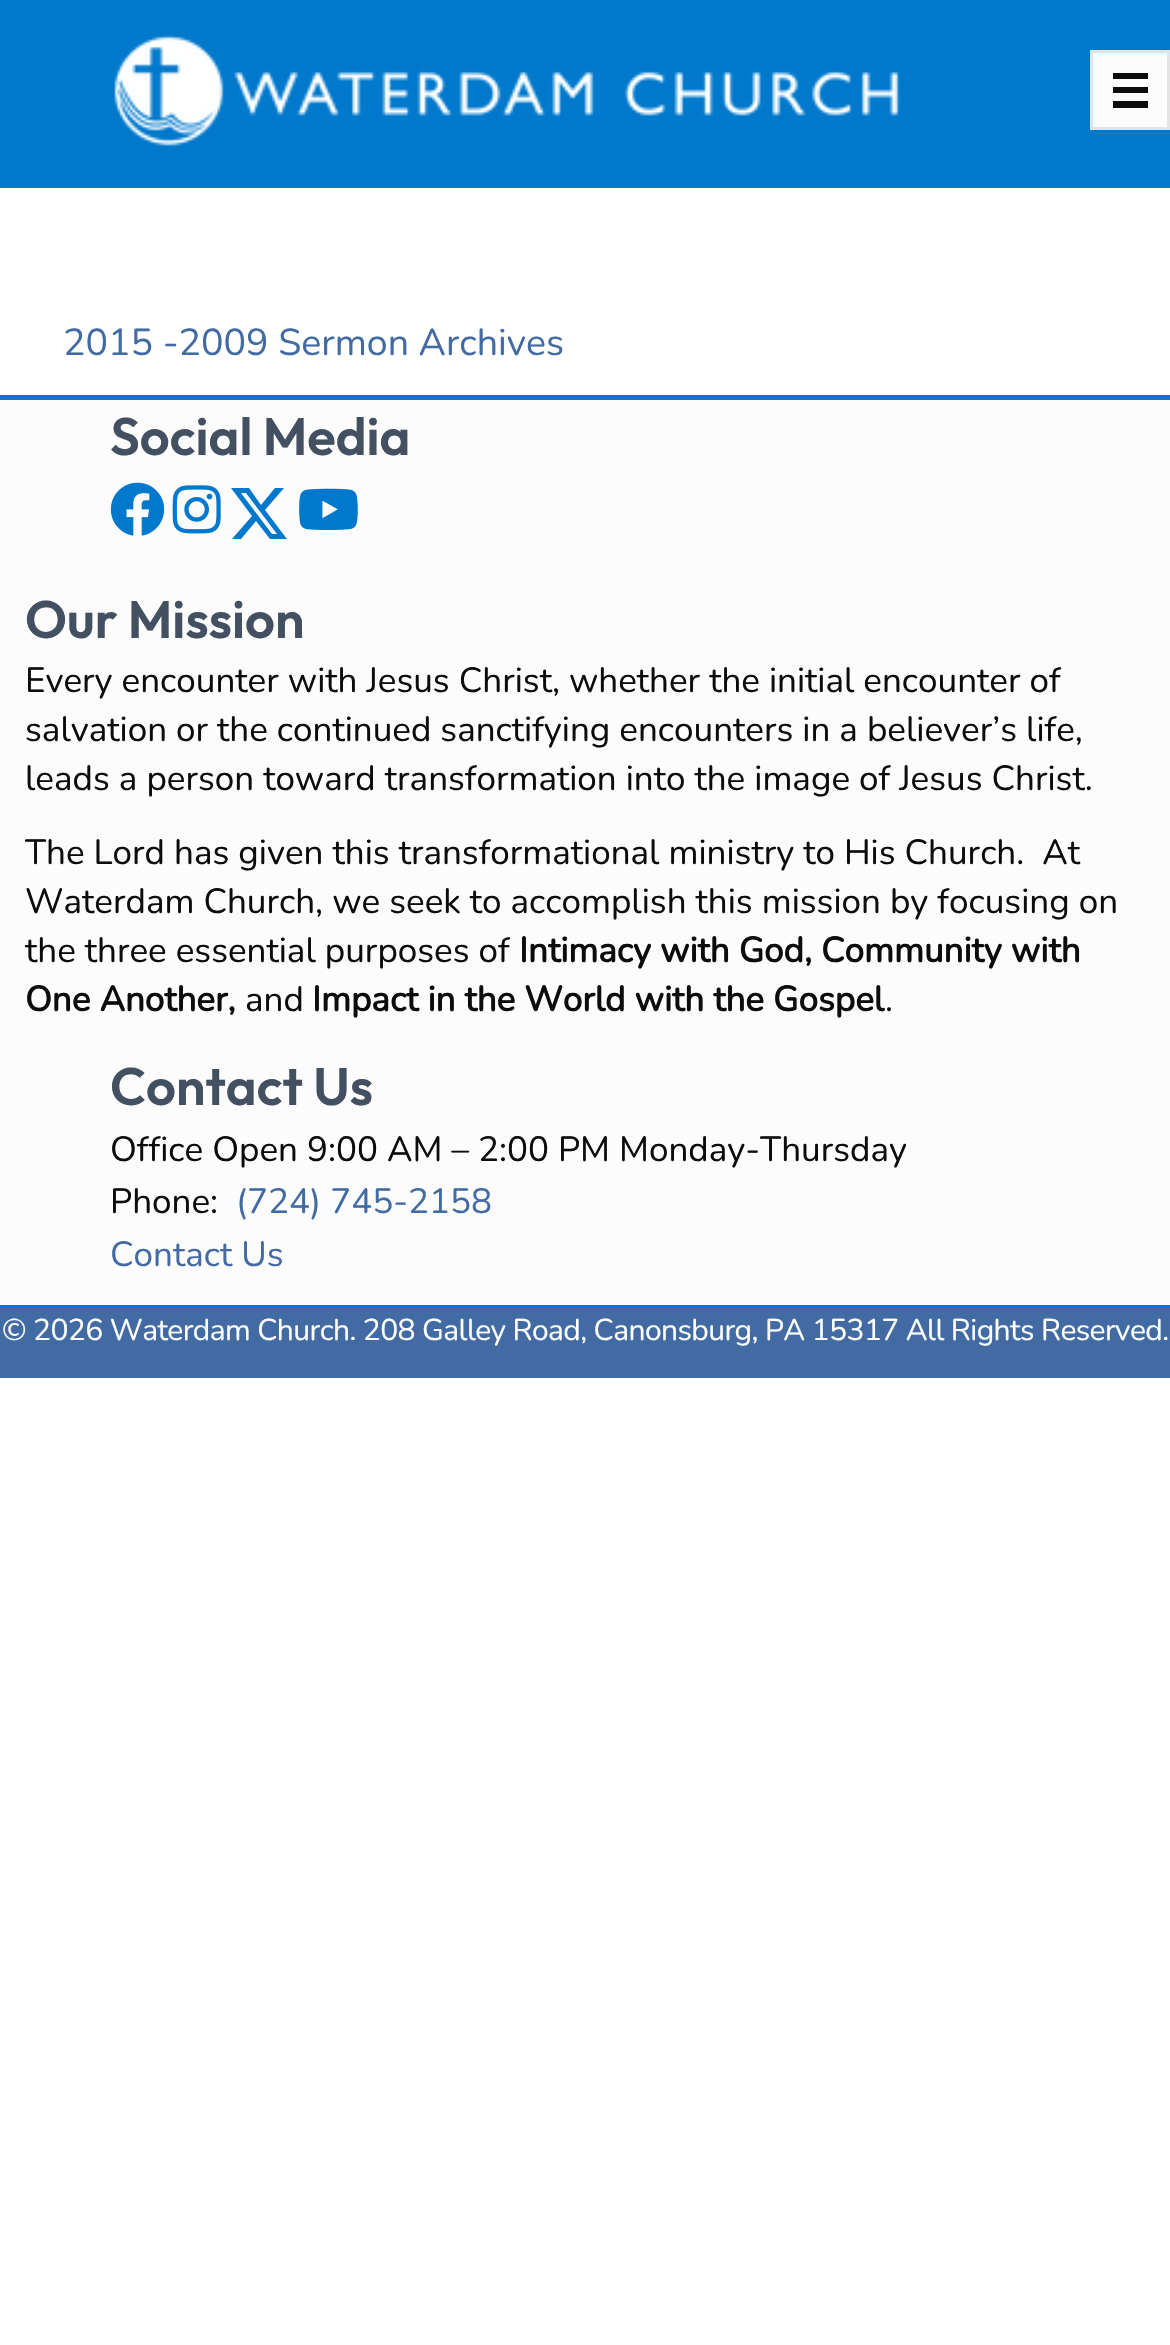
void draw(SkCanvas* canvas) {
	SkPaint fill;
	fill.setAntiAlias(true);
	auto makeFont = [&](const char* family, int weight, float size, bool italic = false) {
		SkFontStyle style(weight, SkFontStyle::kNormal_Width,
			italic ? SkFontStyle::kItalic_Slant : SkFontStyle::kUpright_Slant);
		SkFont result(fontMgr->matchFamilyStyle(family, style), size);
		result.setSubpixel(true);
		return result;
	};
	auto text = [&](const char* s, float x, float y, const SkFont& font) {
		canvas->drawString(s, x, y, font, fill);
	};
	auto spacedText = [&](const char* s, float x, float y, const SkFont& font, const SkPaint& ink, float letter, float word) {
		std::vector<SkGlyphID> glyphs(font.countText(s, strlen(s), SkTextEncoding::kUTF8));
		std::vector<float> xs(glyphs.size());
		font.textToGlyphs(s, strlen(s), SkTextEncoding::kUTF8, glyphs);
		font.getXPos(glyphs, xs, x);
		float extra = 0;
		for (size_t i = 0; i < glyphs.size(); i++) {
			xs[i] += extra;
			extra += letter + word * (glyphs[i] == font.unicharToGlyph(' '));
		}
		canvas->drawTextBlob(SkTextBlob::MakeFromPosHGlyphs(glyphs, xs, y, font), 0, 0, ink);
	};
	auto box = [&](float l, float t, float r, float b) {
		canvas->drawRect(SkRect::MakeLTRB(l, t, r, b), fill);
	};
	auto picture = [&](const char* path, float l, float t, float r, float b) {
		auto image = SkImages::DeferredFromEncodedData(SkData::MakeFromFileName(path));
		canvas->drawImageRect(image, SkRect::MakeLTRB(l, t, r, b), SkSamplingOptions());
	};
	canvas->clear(0xFFFFFFFF);
	fill.setColor(0xFF0078CC);
	box(0, 0, 1170, 188);
	picture("image0.png", 114, 34, 900, 146);
	fill.setColor(0xFFFCFCFC);
	canvas->drawRect(SkRect::MakeLTRB(1091.5f, 51.5f, 1168.5f, 128.5f), fill);
	fill.setStyle(SkPaint::kStroke_Style);
	fill.setStrokeWidth(3);
	fill.setColor(0xFFE3E3E3);
	canvas->drawRect(SkRect::MakeLTRB(1091.5f, 51.5f, 1168.5f, 128.5f), fill);
	fill.setStyle(SkPaint::kFill_Style);
	fill.setColor(0xFF0C0C0C);
	box(1113, 73, 1148, 79);
	box(1113, 87, 1148, 93);
	box(1113, 101, 1148, 108);
	fill.setColor(0xFFFCFCFC);
	box(0, 400, 1170, 1305);
	fill.setColor(0xFF0078CC);
	box(0, 395, 1170, 400);
	box(0, 1305, 1170, 1308);
	picture("image1.png", 110, 482, 165, 536);
	picture("image2.png", 172, 485, 221, 534);
	canvas->drawPath(SkPathBuilder().moveTo(275, 488).lineTo(284, 488).lineTo(265, 510).lineTo(287, 539).lineTo(270, 539).lineTo(256, 521).lineTo(241, 539).lineTo(232, 539).lineTo(252, 516).lineTo(231, 488).lineTo(249, 488).lineTo(261, 505).close().moveTo(272, 534).lineTo(277, 534).lineTo(246, 493).lineTo(241, 493).close().detach(), fill);
	picture("image3.png", 299, 488, 358, 530);
	fill.setColor(0xFF426BA4);
	box(0, 1308, 1170, 1378);
	auto font1 = makeFont("Nunito", 200, 37.5f);
	text("2015 -2009 Sermon Archives", 63, 355, font1);
	auto font2 = makeFont("Outfit", 600, 52.5f);
	fill.setColor(0xFF435061);
	text("Social Media", 110, 455, font2);
	text("Our Mission", 25, 638, font2);
	auto font3 = makeFont("Nunito", 200, 35);
	fill.setColor(0xFF0C0C0C);
	text("Every encounter with Jesus Christ, whether the initial encounter of", 25, 692, font3);
	text("salvation or the continued sanctifying encounters in a believer’s life,", 25, 741, font3);
	text("leads a person toward transformation into the image of Jesus Christ.", 25, 790, font3);
	text("The Lord has given this transformational ministry to His Church.  At", 25, 864, font3);
	text("Waterdam Church, we seek to accomplish this mission by focusing on", 25, 913, font3);
	text("the three essential purposes of", 25, 962, font3);
	auto font4 = makeFont("Nunito", 700, 35);
	text("Intimacy with God, Community with", 519, 962, font4);
	text("One Another,", 25, 1011, font4);
	text("and", 245, 1011, font3);
	text("Impact in the World with the Gospel", 312, 1011, font4);
	text(".", 885, 1011, font3);
	fill.setColor(0xFF435061);
	text("Contact Us", 110, 1105, font2);
	fill.setColor(0xFF0C0C0C);
	text("Office Open 9:00 AM – 2:00 PM Monday-Thursday", 110, 1161, font3);
	text("Phone:", 110, 1213, font3);
	fill.setColor(0xFF426BA4);
	text("(724) 745-2158", 236, 1213, font3);
	text("Contact Us", 110, 1266, font3);
	auto font5 = makeFont("Nunito", 200, 30);
	fill.setColor(0xFFFFFFFF);
	spacedText("© 2026 Waterdam Church. 208 Galley Road, Canonsburg, PA 15317 All Rights Reserved.", 2, 1340, font5, fill, -0.6f, 0);
}
